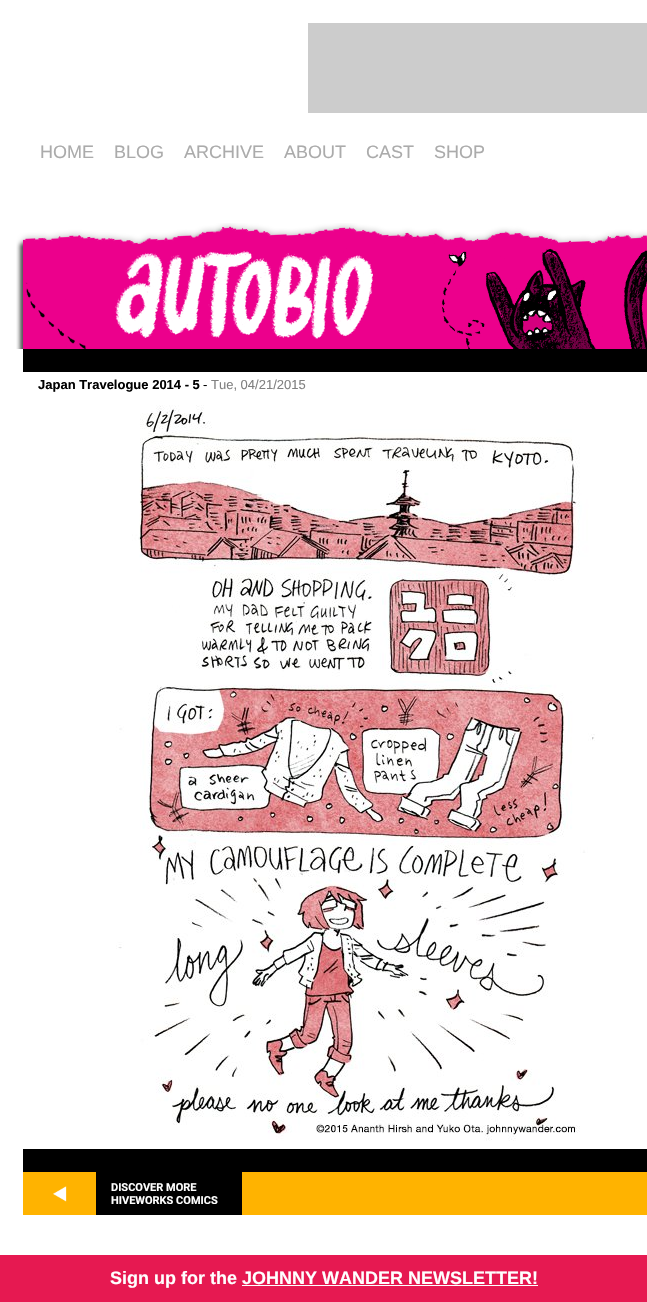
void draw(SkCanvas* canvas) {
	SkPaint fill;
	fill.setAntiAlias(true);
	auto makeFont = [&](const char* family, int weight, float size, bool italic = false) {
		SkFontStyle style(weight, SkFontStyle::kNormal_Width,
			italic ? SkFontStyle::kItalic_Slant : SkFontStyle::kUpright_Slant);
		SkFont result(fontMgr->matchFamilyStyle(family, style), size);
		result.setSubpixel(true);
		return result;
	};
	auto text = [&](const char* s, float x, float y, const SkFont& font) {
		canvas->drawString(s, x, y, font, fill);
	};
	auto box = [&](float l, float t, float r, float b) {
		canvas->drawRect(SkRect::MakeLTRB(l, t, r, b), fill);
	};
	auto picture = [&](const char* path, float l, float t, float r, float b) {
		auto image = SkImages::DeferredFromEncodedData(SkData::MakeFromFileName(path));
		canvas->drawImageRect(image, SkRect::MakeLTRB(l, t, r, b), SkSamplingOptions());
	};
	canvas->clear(0xFFFFFFFF);
	fill.setColor(0xFFCCCCCC);
	box(308, 23, 647, 113);
	picture("image0.png", 16, 223, 647, 349);
	fill.setColor(0xFF000000);
	box(23, 349, 647, 372);
	picture("image1.png", 116, 405, 595, 1141);
	box(23, 1149, 647, 1172);
	fill.setColor(0xFFFFB300);
	box(23, 1172, 647, 1215);
	picture("image2.png", 53, 1186, 67, 1202);
	fill.setColor(0xFF000000);
	box(96, 1172, 242, 1215);
	fill.setColor(0xFFE61951);
	box(0, 1255, 647, 1302);
	fill.setColor(0xFFFFFFFF);
	box(242, 1285, 538, 1286);
	auto font1 = makeFont("Liberation Sans", 400, 18);
	fill.setColor(0xFFABABAB);
	text("HOME", 40, 158, font1);
	text("BLOG", 114, 158, font1);
	text("ARCHIVE", 184, 158, font1);
	text("ABOUT", 284, 158, font1);
	text("CAST", 366, 158, font1);
	text("SHOP", 434, 158, font1);
	auto font2 = makeFont("Liberation Sans", 700, 13);
	fill.setColor(0xFF000000);
	text("Japan Travelogue 2014 - 5", 38, 389, font2);
	auto font3 = makeFont("Liberation Sans", 400, 13);
	text("-", 203, 389, font3);
	fill.setColor(0xFF808080);
	text("Tue, 04/21/2015", 211, 389, font3);
	auto font4 = makeFont("Roboto", 700, 11);
	fill.setColor(0xFFFFFFFF);
	text("DISCOVER MORE", 111, 1191, font4);
	text("HIVEWORKS COMICS", 111, 1204, font4);
	auto font5 = makeFont("Liberation Sans", 700, 18);
	text("Sign up for the JOHNNY WANDER NEWSLETTER!", 110, 1284, font5);
}
